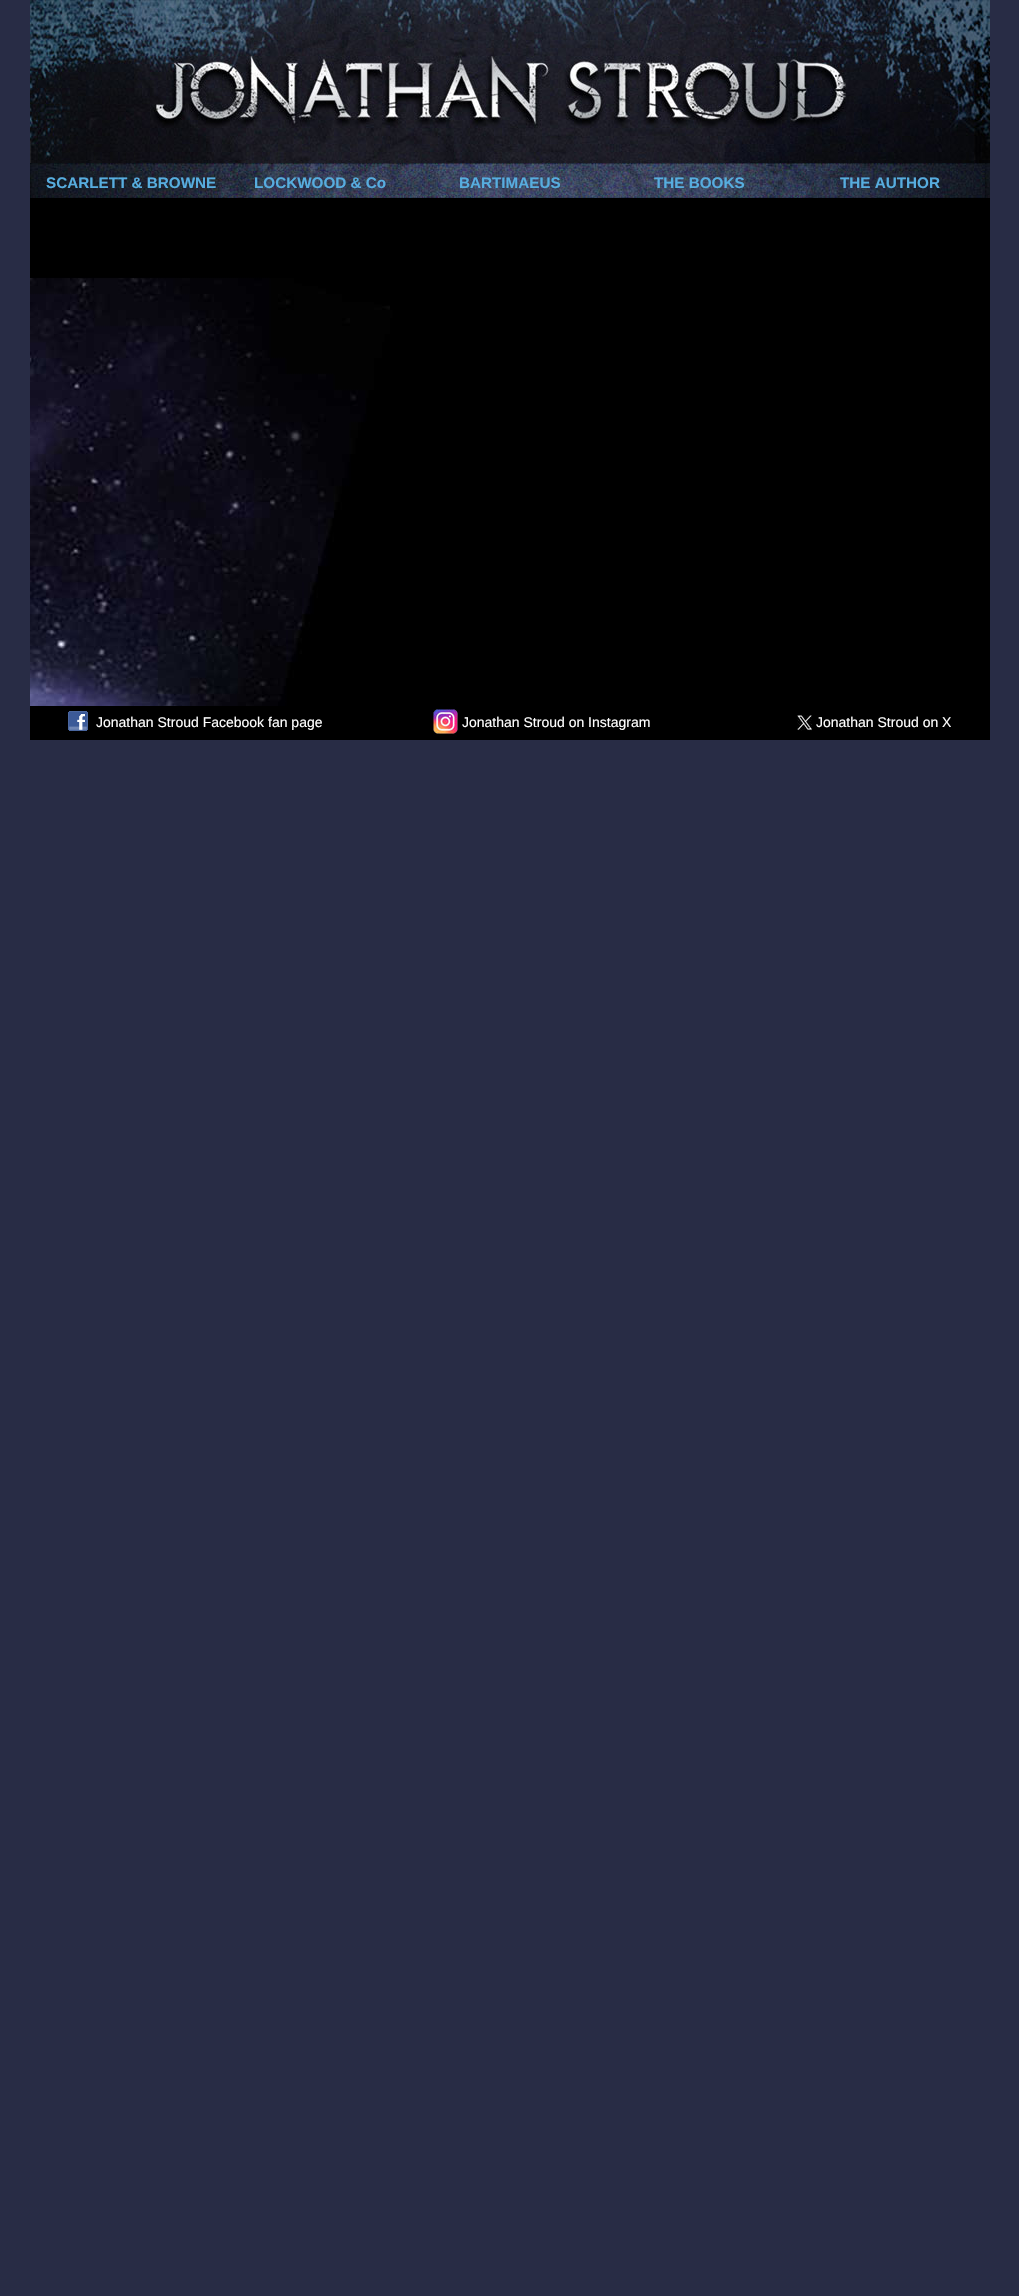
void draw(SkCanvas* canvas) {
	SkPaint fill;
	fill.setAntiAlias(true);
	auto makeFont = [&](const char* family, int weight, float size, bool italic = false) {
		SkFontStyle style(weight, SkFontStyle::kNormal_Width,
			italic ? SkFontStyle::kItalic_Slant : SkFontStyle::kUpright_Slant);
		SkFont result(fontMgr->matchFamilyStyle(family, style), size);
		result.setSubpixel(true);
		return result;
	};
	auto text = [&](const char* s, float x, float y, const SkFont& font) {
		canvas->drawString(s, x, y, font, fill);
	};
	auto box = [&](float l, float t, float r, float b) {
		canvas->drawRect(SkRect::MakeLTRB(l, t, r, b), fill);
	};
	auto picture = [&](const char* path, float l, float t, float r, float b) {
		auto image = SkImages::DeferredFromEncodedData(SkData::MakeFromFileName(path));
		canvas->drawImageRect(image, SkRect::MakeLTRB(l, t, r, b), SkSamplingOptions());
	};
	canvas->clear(0xFF282C45);
	picture("image0.png", 30, 0, 990, 163);
	picture("image1.png", 30, 163, 990, 198);
	picture("image2.png", 30, 198, 990, 706);
	fill.setColor(0xFF000000);
	box(30, 706, 990, 740);
	picture("image3.png", 68, 711, 88, 731);
	picture("image4.png", 433, 709, 458, 737);
	picture("image5.png", 797, 715, 812, 731);
	auto font1 = makeFont("Liberation Sans", 700, 15.25f);
	fill.setColor(0xFF57ADDF);
	text("SCARLETT & BROWNE", 46, 188, font1);
	text("LOCKWOOD & Co", 254, 188, font1);
	text("BARTIMAEUS", 459, 188, font1);
	text("THE BOOKS", 654, 188, font1);
	text("THE AUTHOR", 840, 188, font1);
	auto font2 = makeFont("Liberation Sans", 400, 14);
	fill.setColor(0xFFFFFFFF);
	text("Jonathan Stroud Facebook fan page", 96, 727, font2);
	text("Jonathan Stroud on Instagram", 462, 727, font2);
	text("Jonathan Stroud on X", 816, 727, font2);
}
